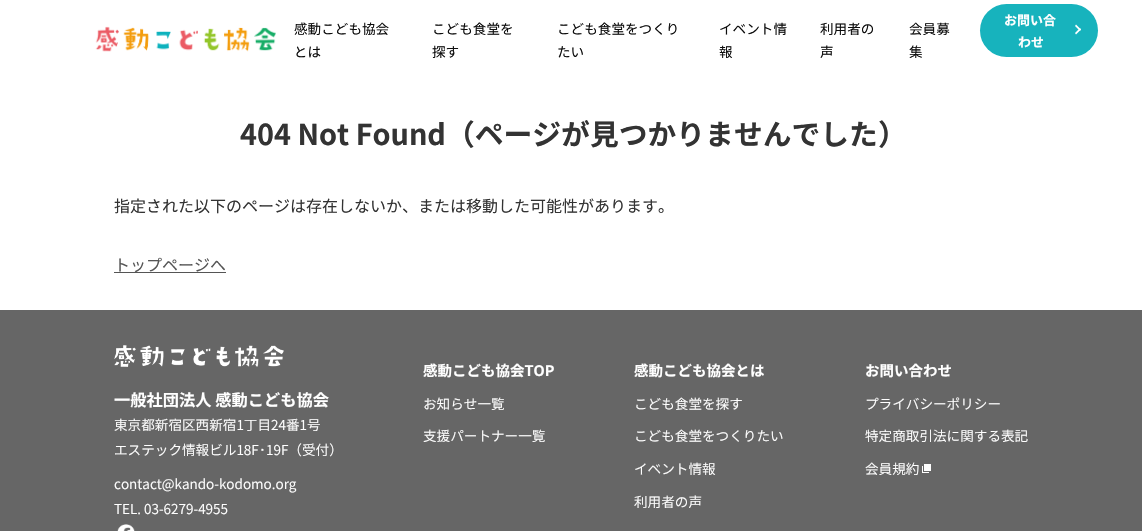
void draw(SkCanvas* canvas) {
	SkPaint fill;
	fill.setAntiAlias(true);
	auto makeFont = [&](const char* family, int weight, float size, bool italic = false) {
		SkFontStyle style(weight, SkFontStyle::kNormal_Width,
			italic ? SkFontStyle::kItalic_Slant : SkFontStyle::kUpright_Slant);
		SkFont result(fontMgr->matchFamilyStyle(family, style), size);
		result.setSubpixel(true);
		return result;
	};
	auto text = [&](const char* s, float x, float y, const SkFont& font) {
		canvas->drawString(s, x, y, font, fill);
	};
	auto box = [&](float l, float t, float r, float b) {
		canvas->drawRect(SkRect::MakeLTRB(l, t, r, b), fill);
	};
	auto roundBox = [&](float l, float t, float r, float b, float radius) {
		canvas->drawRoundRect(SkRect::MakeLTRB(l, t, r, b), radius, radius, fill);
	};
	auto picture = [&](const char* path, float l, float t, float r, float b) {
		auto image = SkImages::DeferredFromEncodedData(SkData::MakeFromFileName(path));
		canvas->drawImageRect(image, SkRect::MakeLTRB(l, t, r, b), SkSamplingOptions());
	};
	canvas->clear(0xFFFFFFFF);
	picture("image0.png", 95, 26, 276, 52);
	fill.setColor(0xFF17B3BD);
	roundBox(980, 4, 1098, 57, 26.5f);
	fill.setColor(0xFFFFFFFF);
	canvas->drawPath(SkPathBuilder().moveTo(1076, 24.5f).lineTo(1081, 29.5f).lineTo(1080, 31).lineTo(1075, 26).close().detach(), fill);
	canvas->drawPath(SkPathBuilder().moveTo(1080, 28).lineTo(1081, 29.5f).lineTo(1076, 34.5f).lineTo(1075, 33).close().detach(), fill);
	fill.setColor(0xFF555555);
	box(114, 272, 226, 273);
	fill.setColor(0xFF666666);
	box(0, 310, 1142, 531);
	picture("image1.png", 114, 345, 284, 367);
	picture("image2.png", 117, 524, 135, 531);
	picture("image3.png", 922, 464, 931, 473);
	auto font1 = makeFont("Noto Sans JP", 400, 13.6f);
	fill.setColor(0xFF0D0D0D);
	text("感動こども協会", 294, 34, font1);
	text("とは", 294, 57, font1);
	text("こども食堂を", 432, 34, font1);
	text("探す", 432, 57, font1);
	text("こども食堂をつくり", 557, 34, font1);
	text("たい", 557, 57, font1);
	text("イベント情", 719, 34, font1);
	text("報", 719, 57, font1);
	text("利用者の", 820, 34, font1);
	text("声", 820, 57, font1);
	text("会員募", 909, 34, font1);
	text("集", 909, 57, font1);
	auto font2 = makeFont("Noto Sans JP", 700, 13);
	fill.setColor(0xFFFFFFFF);
	text("お問い合", 1004, 25, font2);
	text("わせ", 1018, 47, font2);
	auto font3 = makeFont("Noto Sans JP", 700, 28.8f);
	fill.setColor(0xFF333333);
	text("404 Not Found（ページが見つかりませんでした）", 240, 145, font3);
	auto font4 = makeFont("Noto Sans JP", 400, 16);
	text("指定された以下のページは存在しないか、または移動した可能性があります。", 114, 212, font4);
	fill.setColor(0xFF555555);
	text("トップページへ", 114, 271, font4);
	auto font5 = makeFont("Noto Sans JP", 700, 16.25f);
	fill.setColor(0xFFFFFFFF);
	text("一般社団法人 感動こども協会", 114, 406, font5);
	auto font6 = makeFont("Noto Sans JP", 300, 13.6f);
	text("東京都新宿区西新宿1丁目24番1号", 114, 430, font6);
	text("エステック情報ビル18F", 114, 455, font6);
	auto font7 = makeFont("IPAPGothic", 400, 13.6f);
	text("･", 259, 455, font7);
	text("19F（受付）", 266, 455, font6);
	text("contact@kando-kodomo.org", 114, 489, font6);
	text("TEL. 03-6279-4955", 114, 514, font6);
	auto font8 = makeFont("Noto Sans JP", 700, 14.5f);
	text("感動こども協会TOP", 423, 376, font8);
	text("お知らせ一覧", 423, 409, font6);
	text("支援パートナー一覧", 423, 441, font6);
	text("感動こども協会とは", 634, 376, font8);
	text("こども食堂を探す", 634, 409, font6);
	text("こども食堂をつくりたい", 634, 441, font6);
	text("イベント情報", 634, 474, font6);
	text("利用者の声", 634, 507, font6);
	text("お問い合わせ", 865, 376, font8);
	text("プライバシーポリシー", 865, 409, font6);
	text("特定商取引法に関する表記", 865, 441, font6);
	text("会員規約", 865, 474, font6);
}
